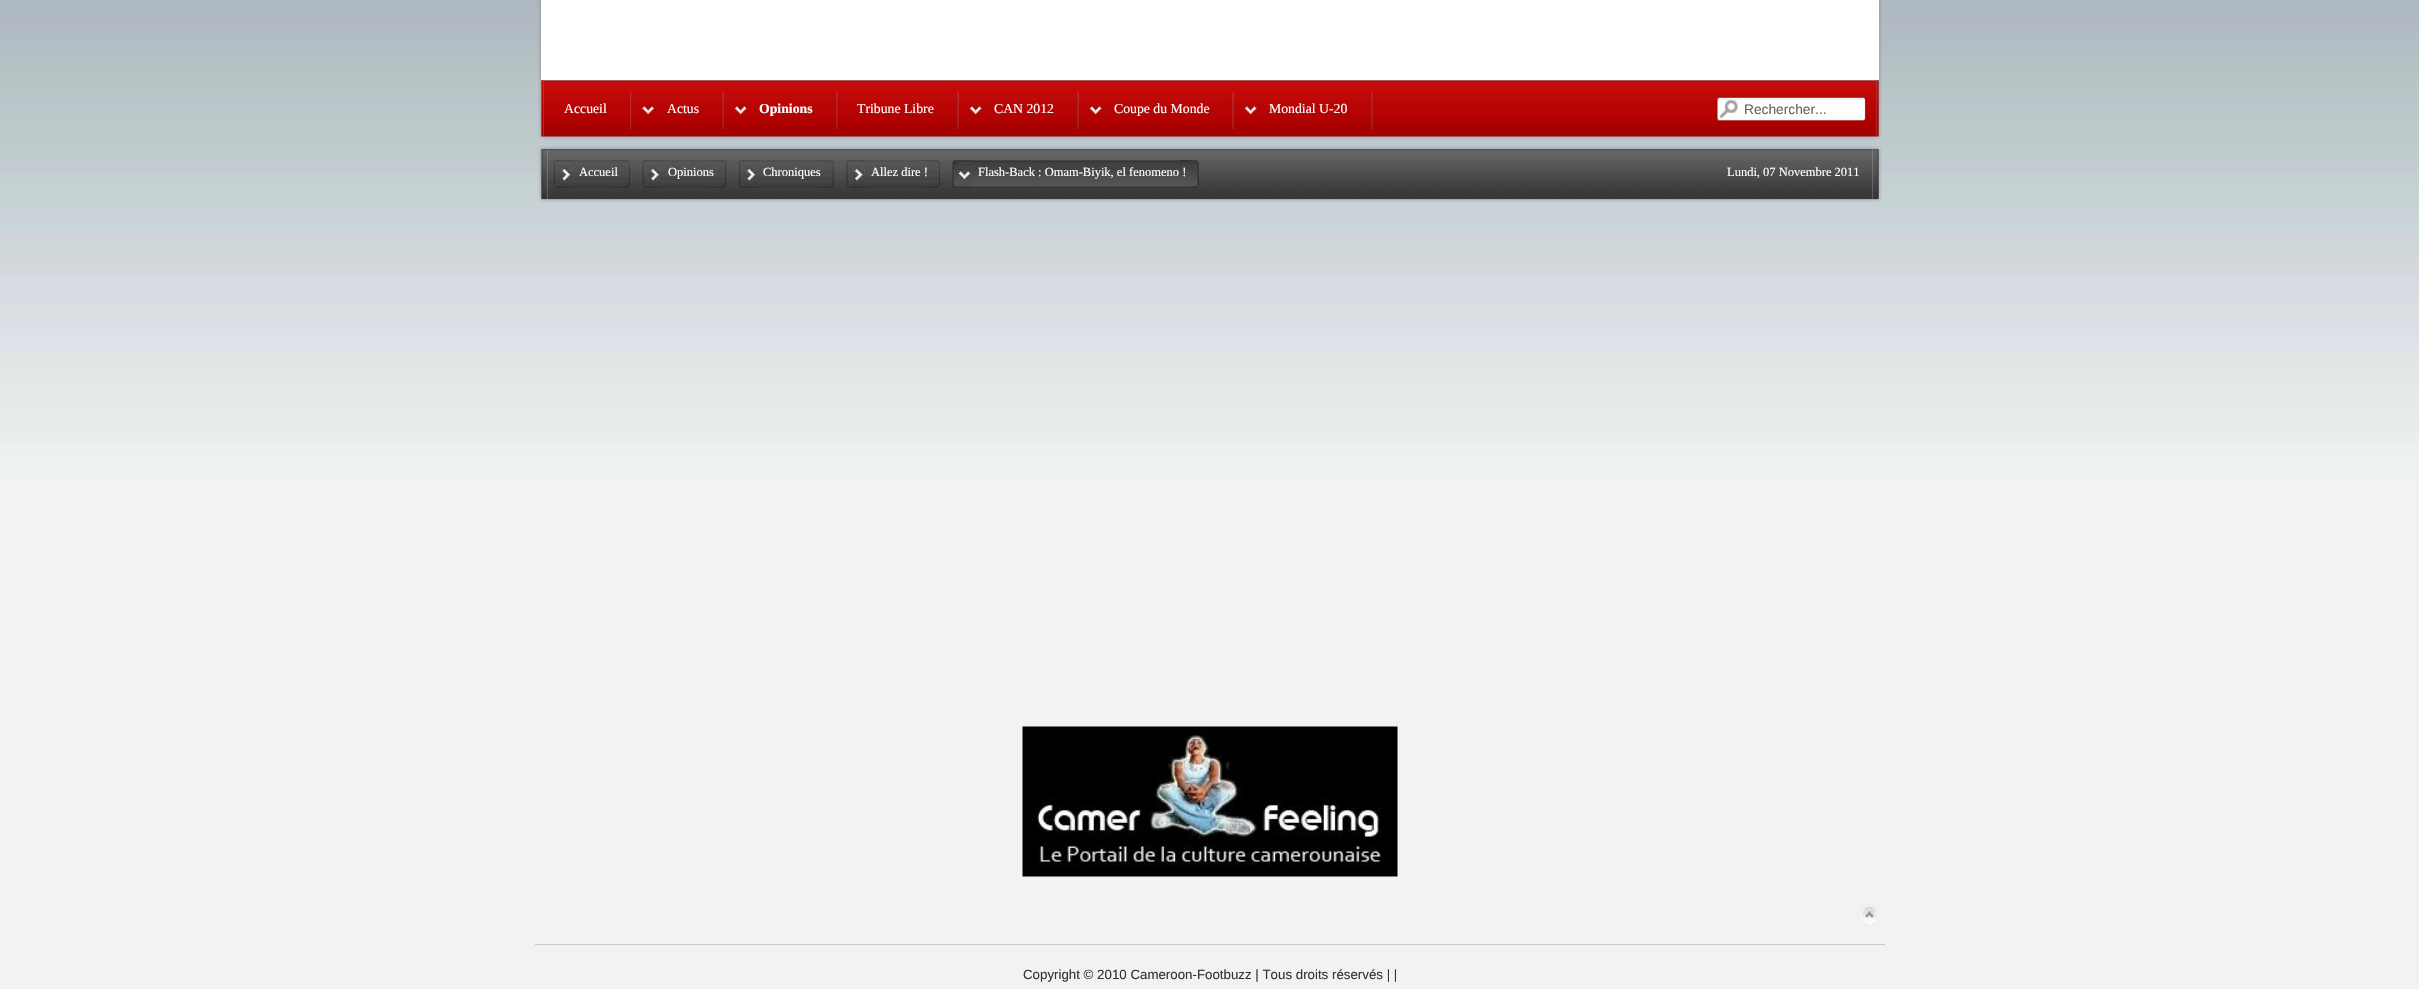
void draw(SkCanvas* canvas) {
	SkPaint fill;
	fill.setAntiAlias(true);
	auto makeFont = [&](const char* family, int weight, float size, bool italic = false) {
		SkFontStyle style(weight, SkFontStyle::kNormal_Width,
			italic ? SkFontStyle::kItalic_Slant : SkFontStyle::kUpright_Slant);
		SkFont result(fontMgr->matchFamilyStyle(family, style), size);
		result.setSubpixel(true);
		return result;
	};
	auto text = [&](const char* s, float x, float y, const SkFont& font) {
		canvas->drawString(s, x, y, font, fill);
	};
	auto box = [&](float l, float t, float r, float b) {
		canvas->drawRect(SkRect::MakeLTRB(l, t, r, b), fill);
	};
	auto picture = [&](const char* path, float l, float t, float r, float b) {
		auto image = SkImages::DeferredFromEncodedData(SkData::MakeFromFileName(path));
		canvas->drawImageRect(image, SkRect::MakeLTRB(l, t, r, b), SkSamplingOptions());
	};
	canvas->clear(0xFFF2F2F0);
	picture("image0.png", 0, 0, 2419, 474);
	picture("image1.png", 538, 0, 555, 81);
	picture("image2.png", 1865, 0, 1882, 81);
	fill.setColor(0xFFFFFFFF);
	box(541, 0, 1879, 80);
	picture("image3.png", 538, 80, 544, 139);
	picture("image4.png", 1876, 80, 1882, 139);
	picture("image5.png", 543, 80, 1877, 140);
	picture("image6.png", 628, 91, 632, 129);
	picture("image7.png", 721, 91, 724, 129);
	picture("image8.png", 642, 105, 654, 115);
	picture("image9.png", 835, 91, 838, 129);
	picture("image10.png", 734, 105, 747, 115);
	picture("image11.png", 956, 91, 959, 129);
	picture("image12.png", 1076, 91, 1079, 129);
	picture("image10.png", 969, 105, 982, 115);
	picture("image13.png", 1231, 91, 1234, 129);
	picture("image10.png", 1089, 105, 1102, 115);
	picture("image14.png", 1370, 91, 1373, 129);
	picture("image15.png", 1244, 105, 1257, 115);
	picture("image16.png", 1716, 96, 1867, 122);
	picture("image17.png", 1719, 100, 1738, 118);
	picture("image18.png", 538, 146, 548, 202);
	picture("image19.png", 1872, 146, 1882, 202);
	picture("image20.png", 547, 145, 1873, 202);
	picture("image21.png", 553, 160, 573, 188);
	picture("image22.png", 611, 160, 630, 188);
	picture("image23.png", 572, 160, 612, 188);
	picture("image24.png", 642, 160, 662, 188);
	picture("image25.png", 707, 160, 727, 188);
	picture("image26.png", 661, 160, 708, 188);
	picture("image21.png", 738, 160, 758, 188);
	picture("image27.png", 815, 160, 834, 188);
	picture("image28.png", 757, 160, 815, 188);
	picture("image29.png", 846, 160, 865, 188);
	picture("image22.png", 921, 160, 940, 188);
	picture("image30.png", 865, 160, 922, 188);
	picture("image31.png", 952, 160, 972, 188);
	picture("image32.png", 1180, 160, 1199, 188);
	picture("image33.png", 971, 160, 1186, 188);
	picture("image34.png", 1022, 726, 1398, 877);
	picture("image35.png", 1859, 904, 1880, 925);
	fill.setColor(0xFFC8C8C8);
	box(535, 944, 1885, 945);
	auto font1 = makeFont("Liberation Serif", 400, 13.75f);
	fill.setColor(0xFFFFFFFF);
	text("Accueil", 564, 113, font1);
	text("Actus", 667, 113, font1);
	auto font2 = makeFont("Liberation Serif", 700, 13.75f);
	text("Opinions", 759, 113, font2);
	text("Tribune Libre", 857, 113, font1);
	text("CAN 2012", 994, 113, font1);
	text("Coupe du Monde", 1114, 113, font1);
	text("Mondial U-20", 1269, 113, font1);
	auto font3 = makeFont("Liberation Sans", 400, 13.75f);
	fill.setColor(0xFF646464);
	text("Rechercher...", 1744, 114, font3);
	auto font4 = makeFont("Liberation Serif", 400, 12.5f);
	fill.setColor(0xFFFFFFFF);
	text("Accueil", 579, 176, font4);
	text("Opinions", 668, 176, font4);
	text("Chroniques", 763, 176, font4);
	text("Allez dire !", 871, 176, font4);
	text("Flash-Back : Omam-Biyik, el fenomeno !", 978, 176, font4);
	text("Lundi, 07 Novembre 2011", 1727, 176, font4);
	auto font5 = makeFont("Liberation Sans", 400, 13.3f);
	fill.setColor(0xFF323232);
	text("Copyright © 2010 Cameroon-Footbuzz | Tous droits réservés | |", 1023, 979, font5);
}
